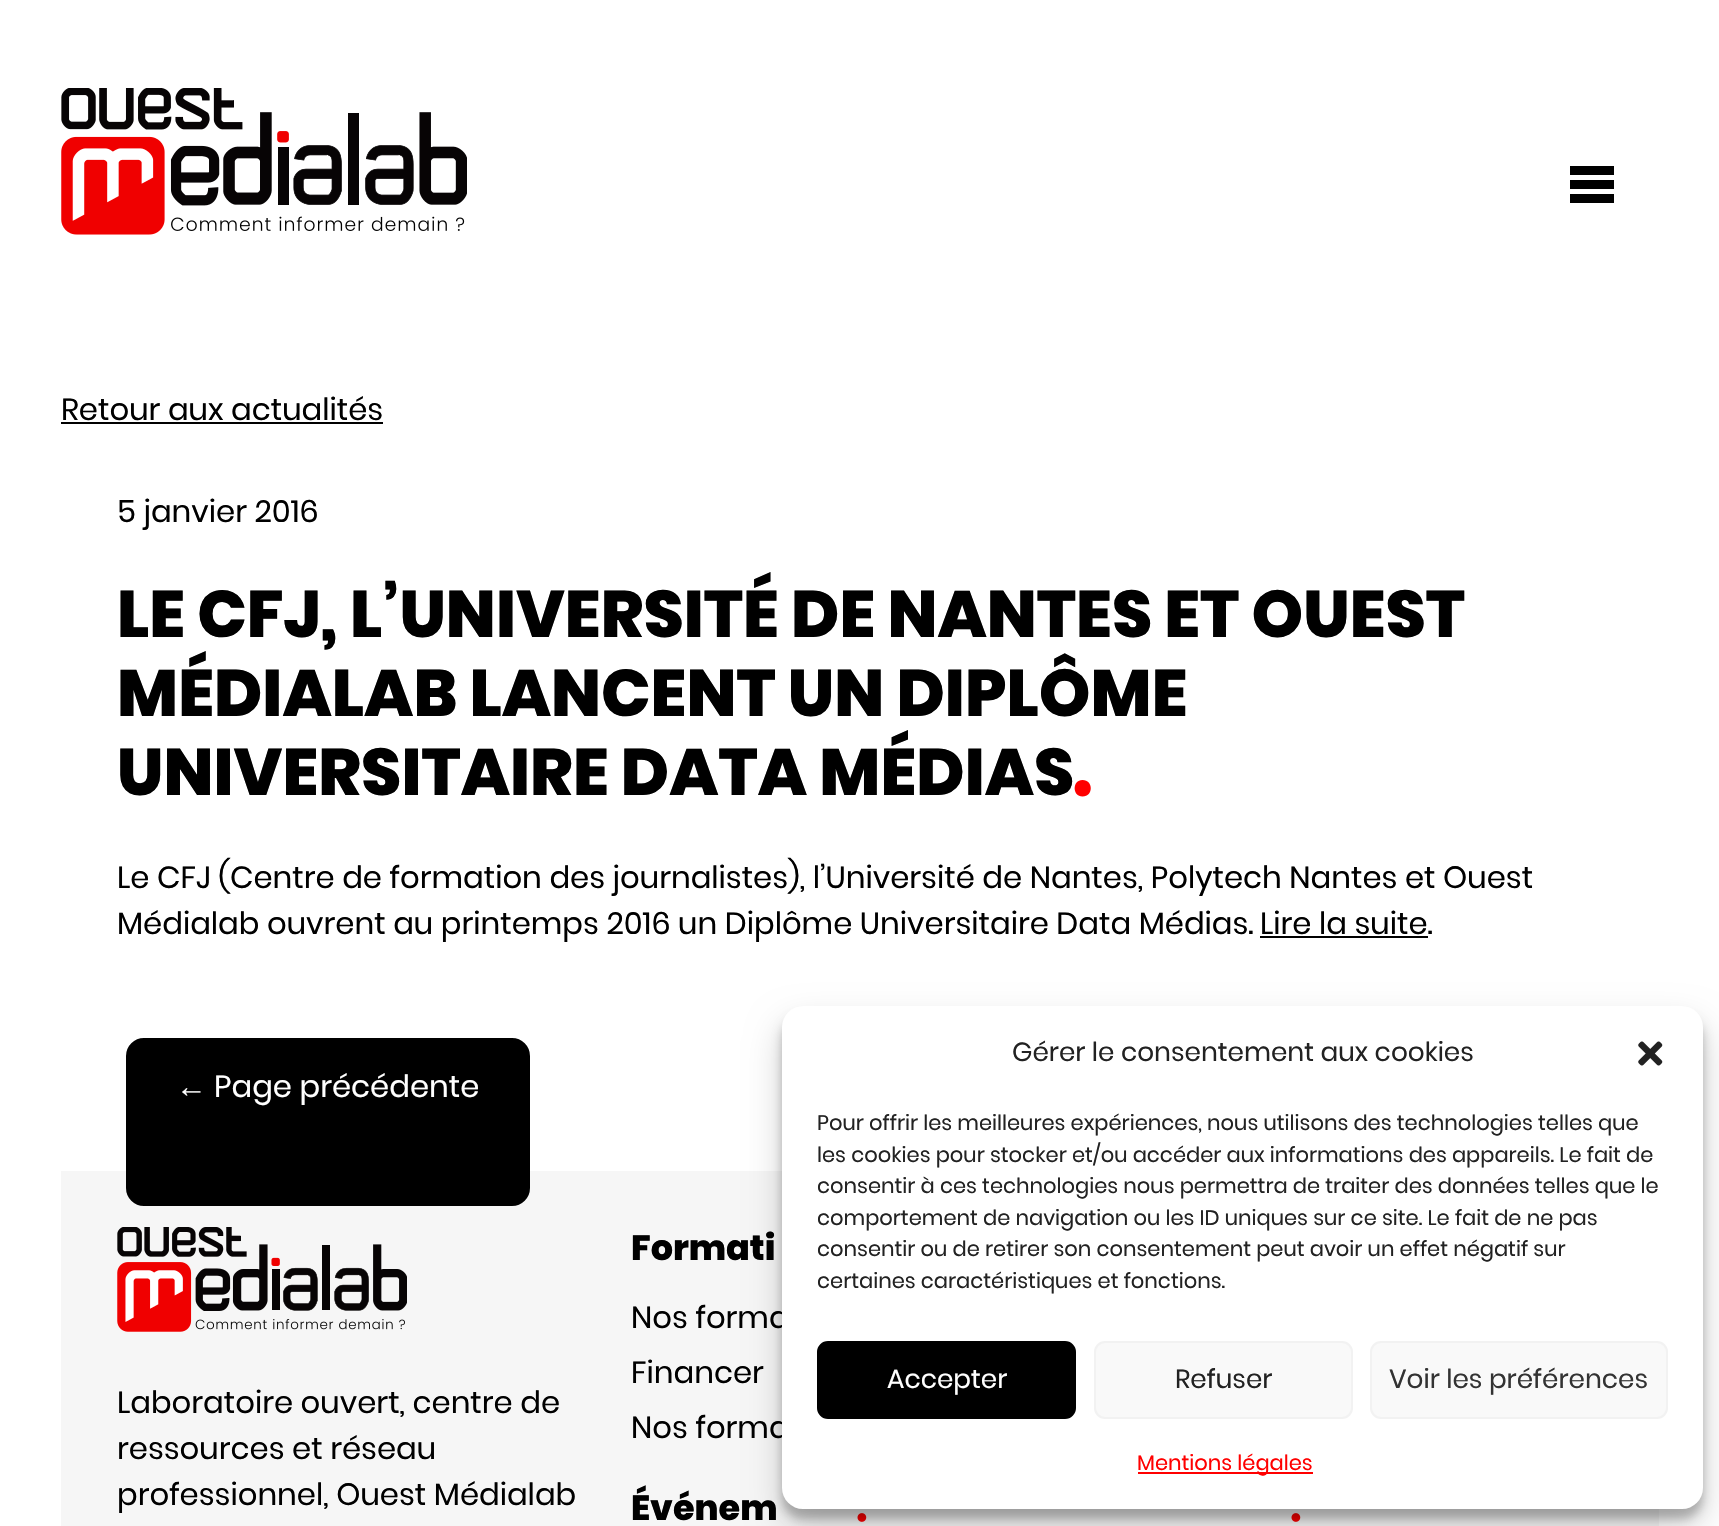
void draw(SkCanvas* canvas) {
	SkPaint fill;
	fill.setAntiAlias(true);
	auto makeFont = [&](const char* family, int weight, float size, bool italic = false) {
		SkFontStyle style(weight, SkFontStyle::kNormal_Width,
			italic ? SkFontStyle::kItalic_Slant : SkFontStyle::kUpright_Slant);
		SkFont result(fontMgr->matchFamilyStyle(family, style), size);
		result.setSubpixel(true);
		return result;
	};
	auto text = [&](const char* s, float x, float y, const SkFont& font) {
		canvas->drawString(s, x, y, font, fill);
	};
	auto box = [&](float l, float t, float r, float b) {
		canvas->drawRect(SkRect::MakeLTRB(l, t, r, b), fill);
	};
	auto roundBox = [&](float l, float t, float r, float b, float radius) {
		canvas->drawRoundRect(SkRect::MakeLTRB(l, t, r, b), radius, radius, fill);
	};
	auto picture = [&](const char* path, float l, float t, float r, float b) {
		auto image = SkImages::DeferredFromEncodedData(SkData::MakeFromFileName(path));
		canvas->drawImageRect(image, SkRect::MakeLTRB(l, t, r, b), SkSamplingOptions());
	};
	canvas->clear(0xFFFFFFFF);
	picture("image0.png", 61, 88, 467, 235);
	fill.setColor(0xFF000000);
	box(1570, 180, 1614, 189);
	box(1570, 166, 1614, 175);
	box(1570, 194, 1614, 203);
	box(61, 422, 383, 424);
	fill.setColor(0xFFFF0000);
	canvas->drawPath(SkPathBuilder().moveTo(1082.5f, 796.5f).cubicTo(1093.5f, 796.5f, 1093.5f, 780, 1082.5f, 780).cubicTo(1072, 780, 1072, 796.5f, 1082.5f, 796.5f).close().detach(), fill);
	fill.setColor(0xFF000000);
	box(1260, 936, 1428, 938);
	fill.setColor(0xFFF6F6F6);
	box(61, 1171, 1659, 1526);
	fill.setColor(0xFF000000);
	canvas->drawRoundRect(SkRect::MakeLTRB(127, 1039, 529, 1205), 17, 17, fill);
	fill.setStyle(SkPaint::kStroke_Style);
	fill.setStrokeWidth(2);
	canvas->drawRoundRect(SkRect::MakeLTRB(127, 1039, 529, 1205), 17, 17, fill);
	picture("image1.png", 117, 1227, 407, 1332);
	picture("image2.png", 857, 1513, 867, 1522);
	picture("image2.png", 1291, 1513, 1301, 1522);
	fill.setStyle(SkPaint::kFill_Style);
	fill.setColor(0x3B000000);
	fill.setMaskFilter(SkMaskFilter::MakeBlur(kNormal_SkBlurStyle, 5));
	canvas->drawRoundRect(SkRect::MakeLTRB(782, 1017, 1703, 1519), 21, 21, fill);
	fill.setMaskFilter(nullptr);
	fill.setColor(0x30000000);
	fill.setMaskFilter(SkMaskFilter::MakeBlur(kNormal_SkBlurStyle, 17.5f));
	canvas->drawRoundRect(SkRect::MakeLTRB(782, 1024, 1703, 1526), 21, 21, fill);
	fill.setMaskFilter(nullptr);
	auto font1 = makeFont("Poppins", 400, 30.65f);
	fill.setColor(0xFF000000);
	text("Retour aux actualités", 61, 420, font1);
	text("5 janvier 2016", 117, 522, font1);
	auto font2 = makeFont("Poppins", 800, 65.6f);
	text("LE CFJ, L’UNIVERSITÉ DE NANTES ET OUEST", 117, 637, font2);
	text("MÉDIALAB LANCENT UN DIPLÔME", 117, 716, font2);
	text("UNIVERSITAIRE DATA MÉDIAS", 117, 795, font2);
	text("Le CFJ (Centre de formation des journalistes), l’Université de Nantes, Polytech Nantes et Ouest", 117, 888, font1);
	text("Médialab ouvrent au printemps 2016 un Diplôme Universitaire Data Médias.", 117, 934, font1);
	text("Lire la suite.", 1260, 934, font1);
	auto font3 = makeFont("Liberation Serif", 400, 30.65f);
	fill.setColor(0xFFFFFFFF);
	text("←", 176, 1097, font3);
	text("Page précédente", 214, 1097, font1);
	fill.setColor(0xFF000000);
	text("Laboratoire ouvert, centre de", 117, 1413, font1);
	text("ressources et réseau", 117, 1459, font1);
	text("professionnel, Ouest Médialab", 117, 1505, font1);
	auto font4 = makeFont("Poppins", 800, 35);
	text("Formati", 631, 1260, font4);
	text("Nos forma", 631, 1328, font1);
	text("Financer", 631, 1383, font1);
	text("Nos forma", 631, 1438, font1);
	text("Événem", 631, 1520, font4);
	fill.setColor(0xFFFFFFFF);
	roundBox(782, 1006, 1703, 1509, 21);
	auto font5 = makeFont("Poppins", 400, 26.25f);
	fill.setColor(0xFF222222);
	text("Gérer le consentement aux cookies", 1012, 1061, font5);
	picture("image3.png", 1638, 1041, 1663, 1066);
	auto font6 = makeFont("Poppins", 400, 21);
	text("Pour offrir les meilleures expériences, nous utilisons des technologies telles que", 817, 1130, font6);
	text("les cookies pour stocker et/ou accéder aux informations des appareils. Le fait de", 817, 1162, font6);
	text("consentir à ces technologies nous permettra de traiter des données telles que le", 817, 1193, font6);
	text("comportement de navigation ou les ID uniques sur ce site. Le fait de ne pas", 817, 1225, font6);
	text("consentir ou de retirer son consentement peut avoir un effet négatif sur", 817, 1256, font6);
	text("certaines caractéristiques et fonctions.", 817, 1288, font6);
	fill.setColor(0xFF000000);
	canvas->drawRoundRect(SkRect::MakeLTRB(818, 1342, 1075, 1418), 10, 10, fill);
	fill.setStyle(SkPaint::kStroke_Style);
	canvas->drawRoundRect(SkRect::MakeLTRB(818, 1342, 1075, 1418), 10, 10, fill);
	fill.setStyle(SkPaint::kFill_Style);
	fill.setColor(0xFFFFFFFF);
	text("Accepter", 887, 1388, font5);
	fill.setColor(0xFFF9F9F9);
	canvas->drawRoundRect(SkRect::MakeLTRB(1095, 1342, 1352, 1418), 10, 10, fill);
	fill.setStyle(SkPaint::kStroke_Style);
	fill.setColor(0xFFF2F2F2);
	canvas->drawRoundRect(SkRect::MakeLTRB(1095, 1342, 1352, 1418), 10, 10, fill);
	fill.setStyle(SkPaint::kFill_Style);
	fill.setColor(0xFF222222);
	text("Refuser", 1175, 1388, font5);
	fill.setColor(0xFFF9F9F9);
	canvas->drawRoundRect(SkRect::MakeLTRB(1371, 1342, 1667, 1418), 10, 10, fill);
	fill.setStyle(SkPaint::kStroke_Style);
	fill.setColor(0xFFF2F2F2);
	canvas->drawRoundRect(SkRect::MakeLTRB(1371, 1342, 1667, 1418), 10, 10, fill);
	fill.setStyle(SkPaint::kFill_Style);
	fill.setColor(0xFF333333);
	text("Voir les préférences", 1389, 1388, font5);
	fill.setColor(0xFFFF0000);
	box(1138, 1472, 1313, 1474);
	text("Mentions légales", 1137, 1470, font6);
}
